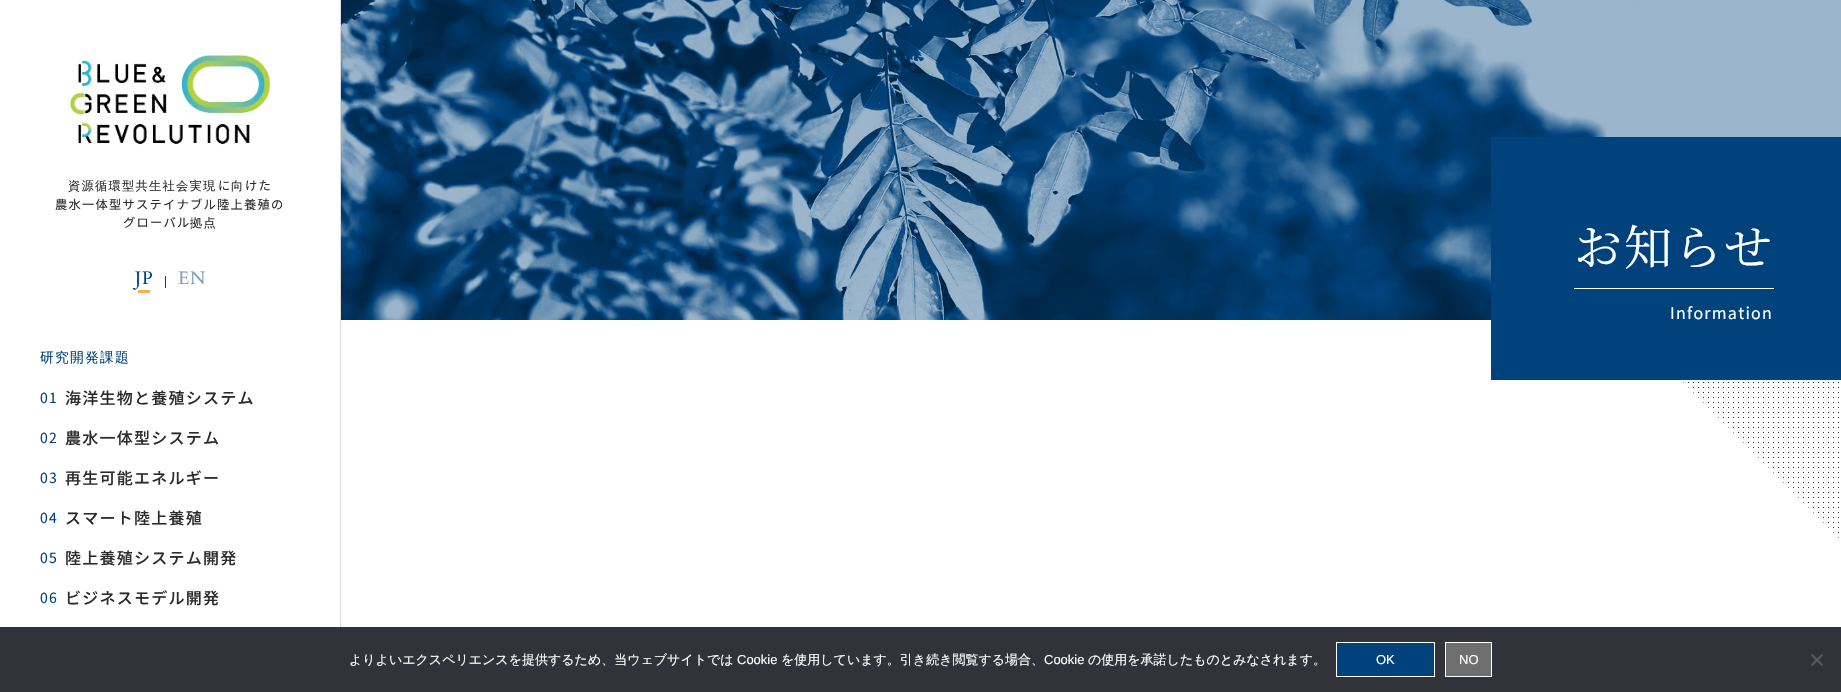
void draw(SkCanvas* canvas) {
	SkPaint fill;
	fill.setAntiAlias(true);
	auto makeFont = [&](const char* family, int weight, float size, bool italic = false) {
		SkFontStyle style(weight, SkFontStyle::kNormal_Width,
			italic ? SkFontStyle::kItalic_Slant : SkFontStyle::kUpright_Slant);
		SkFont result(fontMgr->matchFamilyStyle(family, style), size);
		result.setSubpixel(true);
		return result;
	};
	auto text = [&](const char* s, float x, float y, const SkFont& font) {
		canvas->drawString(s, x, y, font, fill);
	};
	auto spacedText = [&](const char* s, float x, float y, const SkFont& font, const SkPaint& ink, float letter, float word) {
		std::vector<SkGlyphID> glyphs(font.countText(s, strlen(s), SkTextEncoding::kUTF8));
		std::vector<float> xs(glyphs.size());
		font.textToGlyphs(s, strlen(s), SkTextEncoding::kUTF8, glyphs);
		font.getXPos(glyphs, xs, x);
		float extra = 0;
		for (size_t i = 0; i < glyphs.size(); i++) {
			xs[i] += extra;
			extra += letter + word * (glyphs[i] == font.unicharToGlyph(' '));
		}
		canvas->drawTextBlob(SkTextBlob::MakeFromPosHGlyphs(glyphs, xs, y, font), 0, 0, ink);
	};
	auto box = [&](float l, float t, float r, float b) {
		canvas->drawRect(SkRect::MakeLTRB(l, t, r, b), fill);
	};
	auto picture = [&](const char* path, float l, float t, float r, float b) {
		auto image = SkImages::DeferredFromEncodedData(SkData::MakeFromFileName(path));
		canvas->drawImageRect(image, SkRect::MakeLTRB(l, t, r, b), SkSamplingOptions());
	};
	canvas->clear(0xFFFFFFFF);
	fill.setColor(0xFFDADADA);
	box(340, 0, 341, 627);
	picture("image0.png", 70, 55, 270, 145);
	fill.setColor(0xFFF0B350);
	box(138, 290, 150, 293);
	fill.setColor(0xFF00437C);
	box(165, 276, 166, 288);
	picture("image1.png", 341, 0, 1841, 320);
	box(1491, 137, 1841, 380);
	fill.setColor(0xFFFFFFFF);
	box(1574, 288, 1774, 289);
	picture("image2.png", 1683, 382, 1839, 538);
	fill.setColor(0xFF32323A);
	box(0, 627, 1841, 692);
	fill.setColor(0xFF00437C);
	canvas->drawRect(SkRect::MakeLTRB(1336.5f, 642.5f, 1434.5f, 676.5f), fill);
	fill.setStyle(SkPaint::kStroke_Style);
	fill.setStrokeWidth(1);
	fill.setColor(0xFFFFFFFF);
	canvas->drawRect(SkRect::MakeLTRB(1336.5f, 642.5f, 1434.5f, 676.5f), fill);
	fill.setStyle(SkPaint::kFill_Style);
	fill.setColor(0xFF6F6F6F);
	canvas->drawRect(SkRect::MakeLTRB(1445.5f, 642.5f, 1491.5f, 676.5f), fill);
	fill.setStyle(SkPaint::kStroke_Style);
	fill.setColor(0xFFFFFFFF);
	canvas->drawRect(SkRect::MakeLTRB(1445.5f, 642.5f, 1491.5f, 676.5f), fill);
	fill.setStyle(SkPaint::kFill_Style);
	fill.setColor(0xFF59595D);
	canvas->drawPath(SkPathBuilder().moveTo(1821.5f, 654).lineTo(1823, 655.5f).lineTo(1812.5f, 666).lineTo(1811, 664.5f).close().detach(), fill);
	canvas->drawPath(SkPathBuilder().moveTo(1811, 655.5f).lineTo(1812.5f, 654).lineTo(1823, 664.5f).lineTo(1821.5f, 666).close().detach(), fill);
	auto font1 = makeFont("WenQuanYi Zen Hei", 500, 12.25f);
	fill.setColor(0xFF2C2C2C);
	spacedText("資源循環型共生社会実現", 68, 190, font1, fill, 1.25f, 0);
	auto font2 = makeFont("Noto Sans JP", 400, 12.25f);
	spacedText("に", 218, 190, font2, fill, 1.25f, 0);
	spacedText("向", 231, 190, font1, fill, 1.25f, 0);
	spacedText("けた", 245, 190, font2, fill, 1.25f, 0);
	spacedText("農水一体型サステイナブル陸上養殖の", 55, 209, font2, fill, 1.25f, 0);
	spacedText("グローバル", 123, 227, font2, fill, 1.25f, 0);
	spacedText("拠点", 190, 227, font1, fill, 1.25f, 0);
	auto font3 = makeFont("Cardo", 400, 18);
	fill.setColor(0xFF00437C);
	spacedText("JP", 135, 284, font3, fill, 1, 0);
	fill.setColor(0xFF80A1BE);
	spacedText("EN", 178, 284, font3, fill, 1, 0);
	auto font4 = makeFont("WenQuanYi Zen Hei", 500, 13.75f);
	fill.setColor(0xFF00437C);
	spacedText("研究開発課題", 40, 362, font4, fill, 1.25f, 0);
	auto font5 = makeFont("Noto Sans JP", 400, 14);
	spacedText("01", 40, 403, font5, fill, 1.25f, 0);
	auto font6 = makeFont("Noto Sans JP", 500, 16);
	fill.setColor(0xFF2C2C2C);
	spacedText("海洋生物と養殖システム", 65, 404, font6, fill, 1.25f, 0);
	fill.setColor(0xFF00437C);
	spacedText("02", 40, 443, font5, fill, 1.25f, 0);
	fill.setColor(0xFF2C2C2C);
	spacedText("農水一体型システム", 65, 444, font6, fill, 1.25f, 0);
	fill.setColor(0xFF00437C);
	spacedText("03", 40, 483, font5, fill, 1.25f, 0);
	fill.setColor(0xFF2C2C2C);
	spacedText("再生可能エネルギー", 65, 484, font6, fill, 1.25f, 0);
	fill.setColor(0xFF00437C);
	spacedText("04", 40, 523, font5, fill, 1.25f, 0);
	fill.setColor(0xFF2C2C2C);
	spacedText("スマート陸上養殖", 65, 524, font6, fill, 1.25f, 0);
	fill.setColor(0xFF00437C);
	spacedText("05", 40, 563, font5, fill, 1.25f, 0);
	fill.setColor(0xFF2C2C2C);
	spacedText("陸上養殖システム開発", 65, 564, font6, fill, 1.25f, 0);
	fill.setColor(0xFF00437C);
	spacedText("06", 40, 603, font5, fill, 1.25f, 0);
	fill.setColor(0xFF2C2C2C);
	spacedText("ビジネスモデル開発", 65, 604, font6, fill, 1.25f, 0);
	auto font7 = makeFont("Noto Serif JP", 400, 48);
	fill.setColor(0xFFFFFFFF);
	spacedText("お知らせ", 1574, 265, font7, fill, 2, 0);
	auto font8 = makeFont("Noto Sans JP", 400, 16);
	spacedText("Information", 1670, 319, font8, fill, 1.25f, 0);
	auto font9 = makeFont("WenQuanYi Zen Hei", 500, 13);
	text("よりよいエクスペリエンスを提供するため、当ウェブサイトでは", 349, 664, font9);
	auto font10 = makeFont("Liberation Sans", 400, 13);
	text("Cookie", 737, 664, font10);
	text("を使用しています。引き続き閲覧する場合、", 781, 664, font9);
	text("Cookie", 1044, 664, font10);
	text("の使用を承諾したものとみなされます。", 1088, 664, font9);
	text("OK", 1376, 664, font10);
	text("NO", 1459, 664, font10);
}
